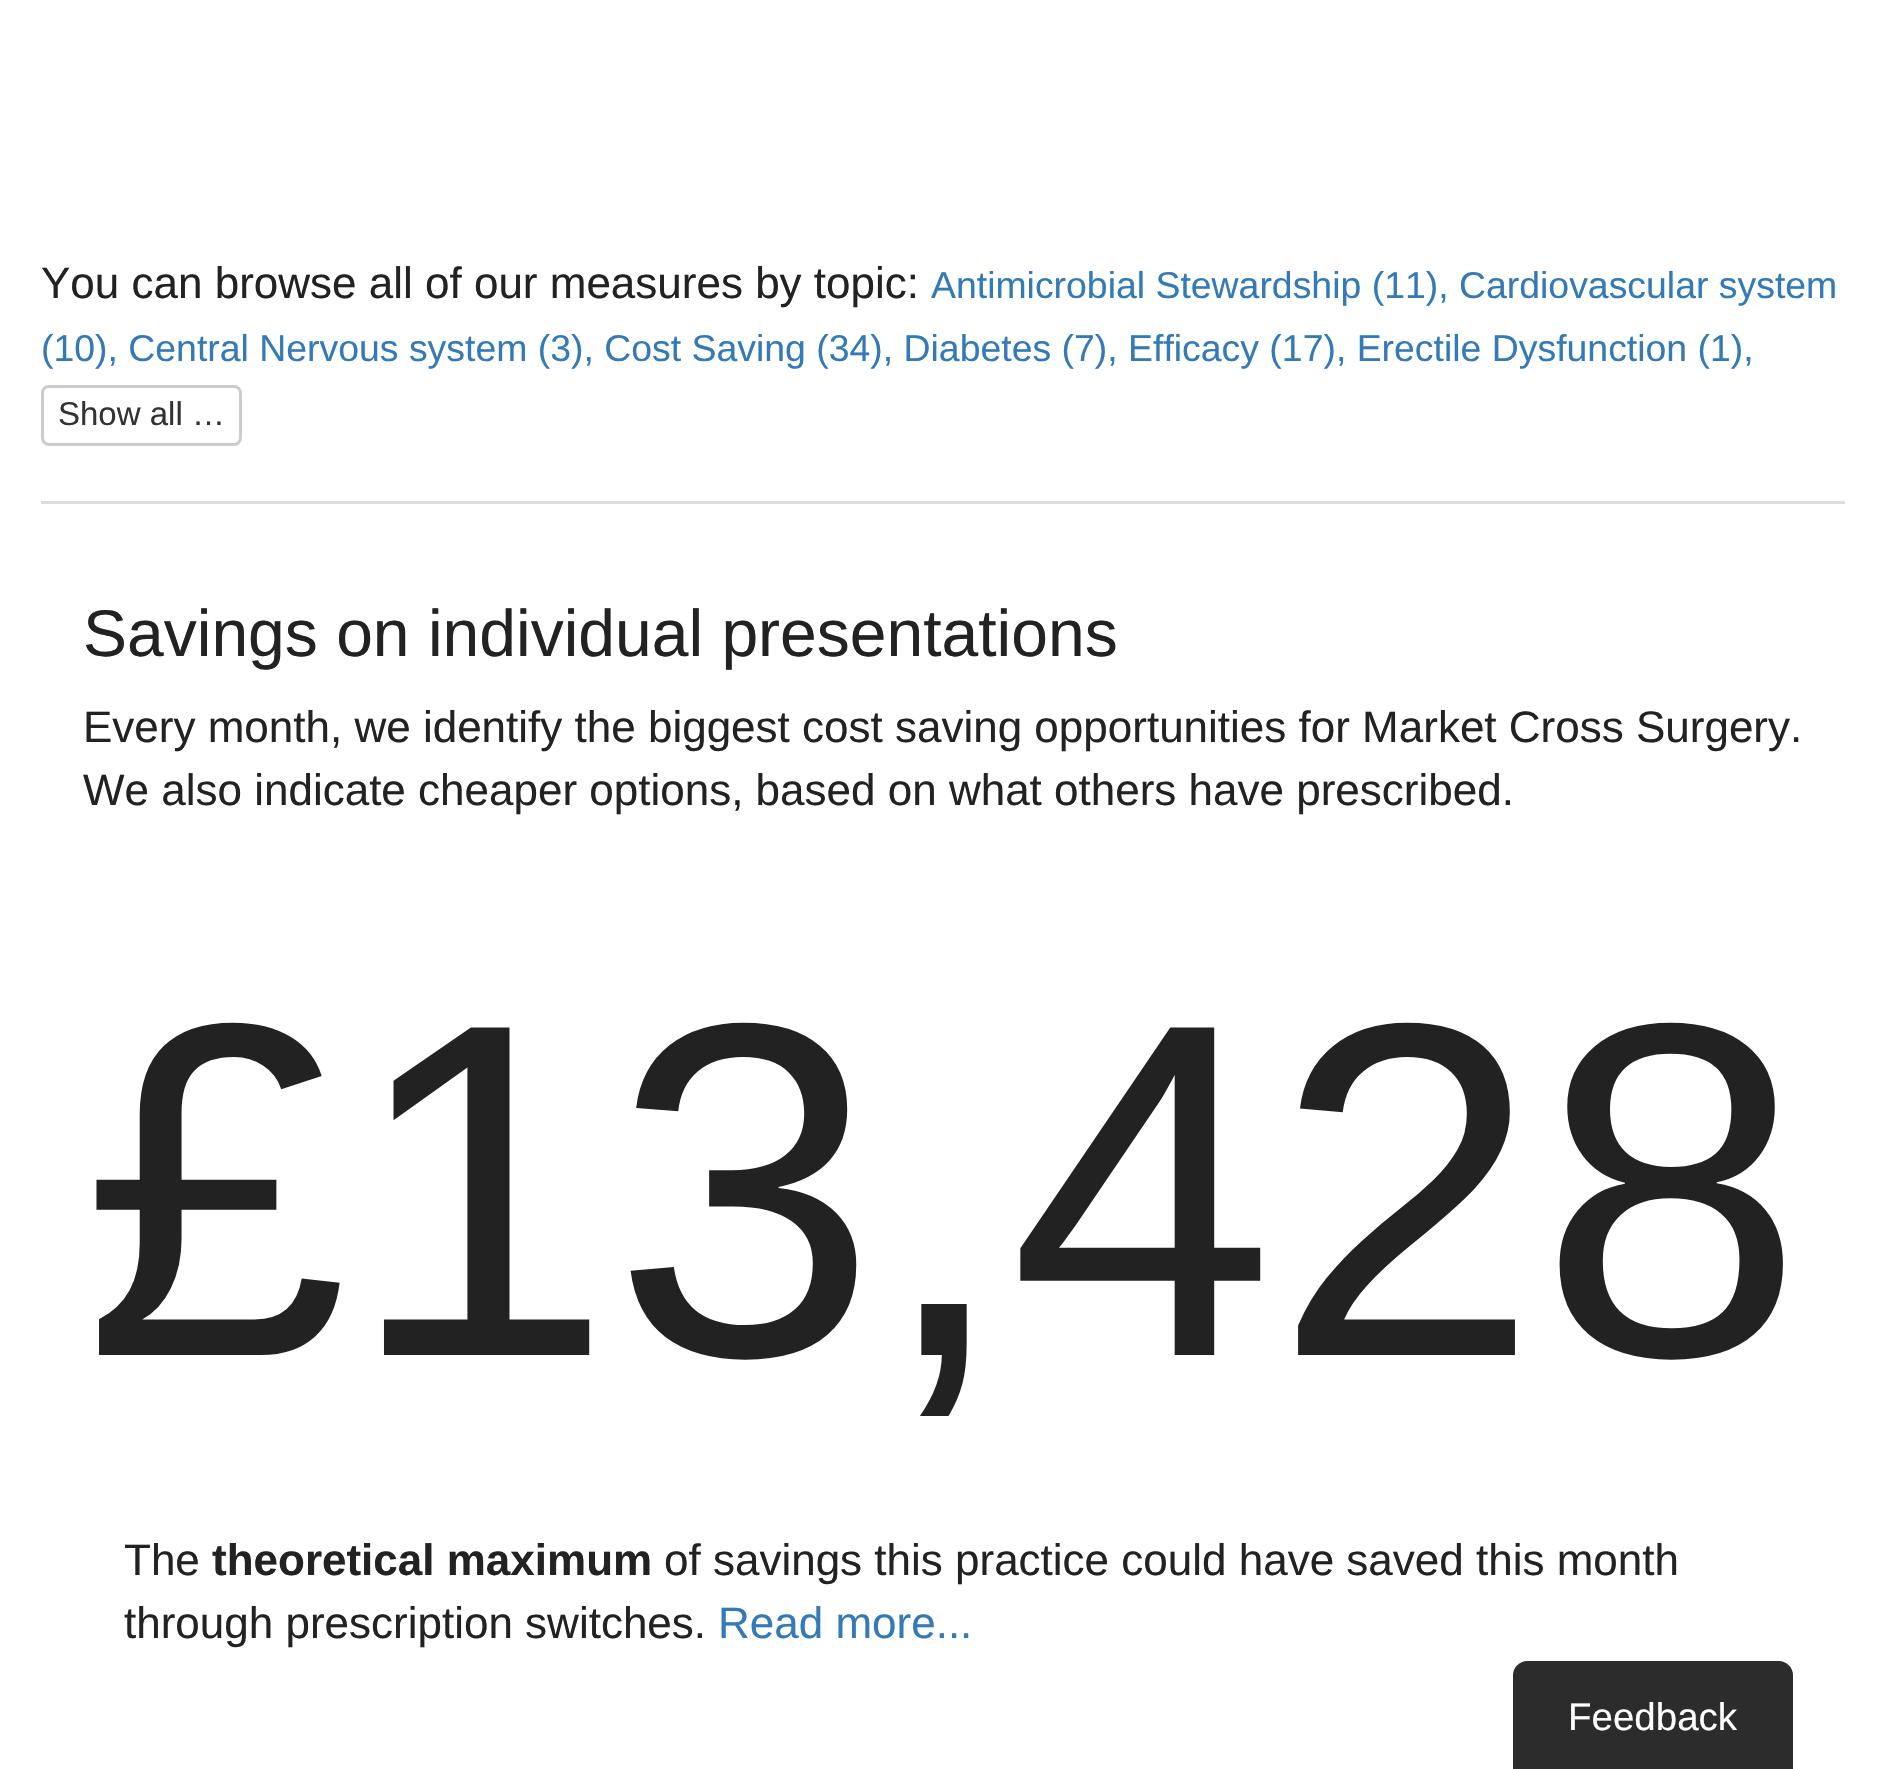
void draw(SkCanvas* canvas) {
	SkPaint fill;
	fill.setAntiAlias(true);
	auto makeFont = [&](const char* family, int weight, float size, bool italic = false) {
		SkFontStyle style(weight, SkFontStyle::kNormal_Width,
			italic ? SkFontStyle::kItalic_Slant : SkFontStyle::kUpright_Slant);
		SkFont result(fontMgr->matchFamilyStyle(family, style), size);
		result.setSubpixel(true);
		return result;
	};
	auto text = [&](const char* s, float x, float y, const SkFont& font) {
		canvas->drawString(s, x, y, font, fill);
	};
	auto box = [&](float l, float t, float r, float b) {
		canvas->drawRect(SkRect::MakeLTRB(l, t, r, b), fill);
	};
	canvas->clear(0xFFFFFFFF);
	fill.setStyle(SkPaint::kStroke_Style);
	fill.setStrokeWidth(3);
	fill.setColor(0xFFCCCCCC);
	canvas->drawRoundRect(SkRect::MakeLTRB(42.5f, 386.5f, 240.5f, 444.5f), 6.5f, 6.5f, fill);
	fill.setStyle(SkPaint::kFill_Style);
	fill.setColor(0xFFDDDDDD);
	box(41, 501, 1845, 504);
	fill.setColor(0xFF2C2C2C);
	canvas->drawPath(SkPathBuilder().moveTo(1527, 1661).lineTo(1779, 1661).cubicTo(1786.5f, 1661, 1793, 1667.5f, 1793, 1675).lineTo(1793, 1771).lineTo(1513, 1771).lineTo(1513, 1675).cubicTo(1513, 1667.5f, 1519.5f, 1661, 1527, 1661).close().detach(), fill);
	auto font1 = makeFont("Liberation Sans", 400, 44);
	fill.setColor(0xFF222222);
	text("You can browse all of our measures by topic:", 41, 298, font1);
	auto font2 = makeFont("Liberation Sans", 400, 37.4f);
	fill.setColor(0xFF337AB7);
	text("Antimicrobial Stewardship (11), Cardiovascular system", 931, 298, font2);
	text("(10), Central Nervous system (3), Cost Saving (34), Diabetes (7), Efficacy (17), Erectile Dysfunction (1),", 41, 361, font2);
	auto font3 = makeFont("Liberation Sans", 400, 33);
	fill.setColor(0xFF333333);
	text("Show all …", 58, 425, font3);
	auto font4 = makeFont("Liberation Sans", 400, 66);
	fill.setColor(0xFF222222);
	text("Savings on individual presentations", 83, 656, font4);
	text("Every month, we identify the biggest cost saving opportunities for Market Cross Surgery.", 83, 742, font1);
	text("We also indicate cheaper options, based on what others have prescribed.", 83, 805, font1);
	auto font5 = makeFont("Liberation Sans", 400, 476);
	text("£13,428", 83, 1355, font5);
	text("The", 124, 1575, font1);
	auto font6 = makeFont("Liberation Sans", 700, 44);
	text("theoretical maximum", 212, 1575, font6);
	text("of savings this practice could have saved this month", 664, 1575, font1);
	text("through prescription switches.", 124, 1638, font1);
	fill.setColor(0xFF337AB7);
	text("Read more...", 718, 1638, font1);
	auto font7 = makeFont("Liberation Sans", 400, 38.5f);
	fill.setColor(0xFFFFFFFF);
	text("Feedback", 1568, 1730, font7);
}
